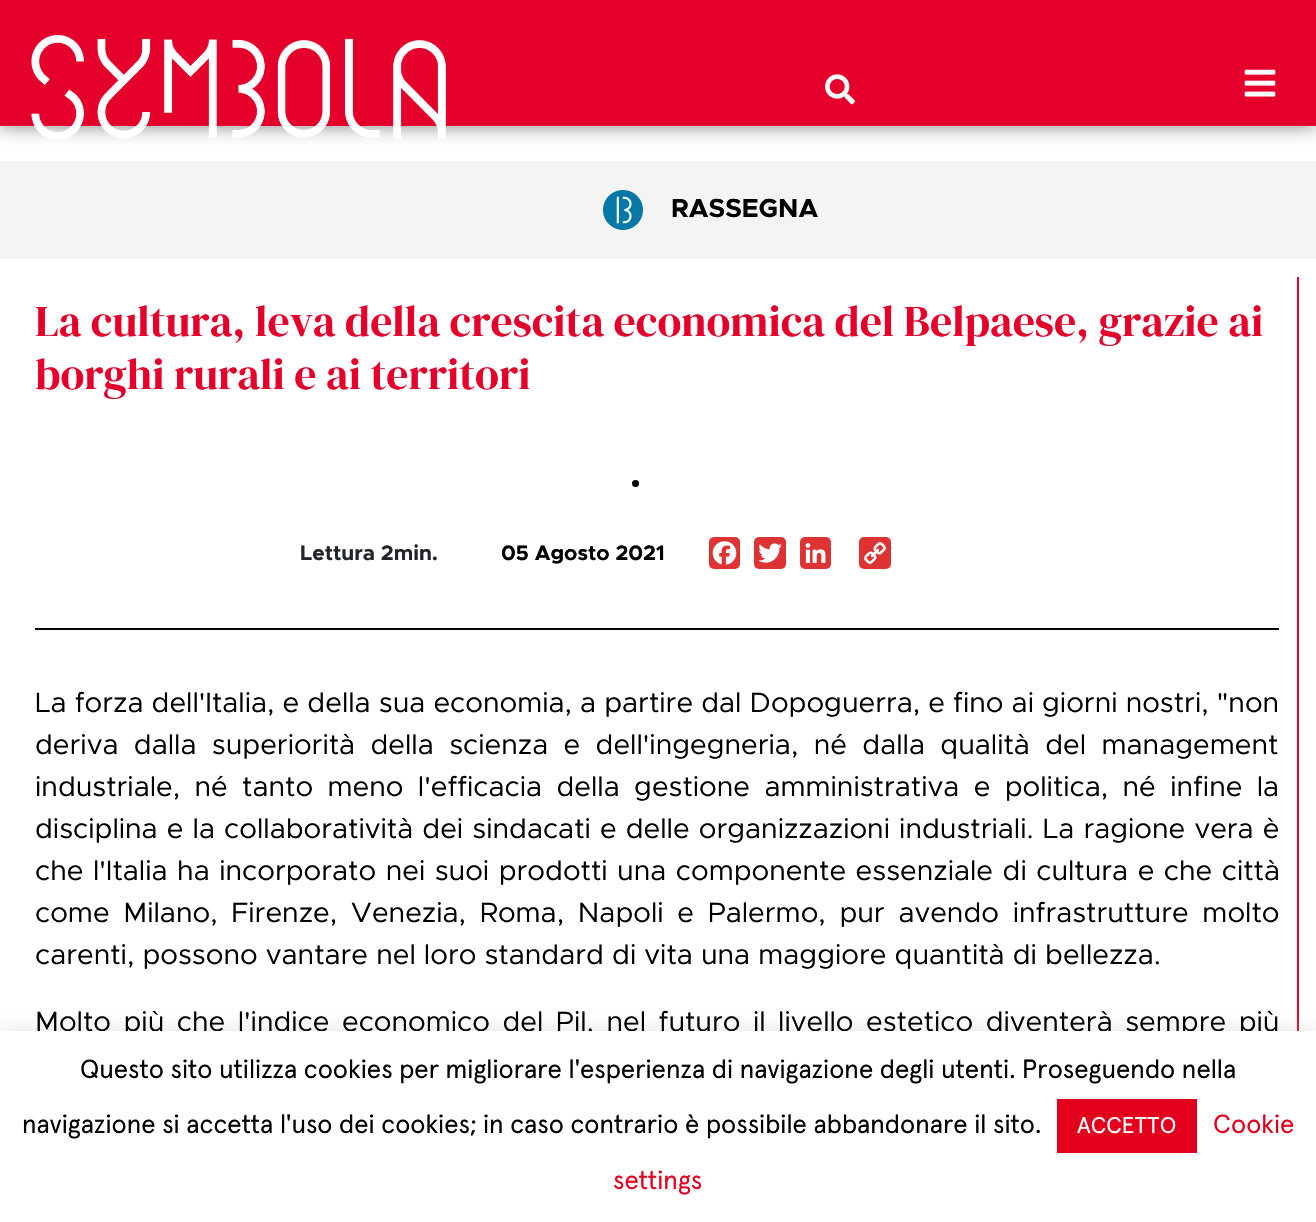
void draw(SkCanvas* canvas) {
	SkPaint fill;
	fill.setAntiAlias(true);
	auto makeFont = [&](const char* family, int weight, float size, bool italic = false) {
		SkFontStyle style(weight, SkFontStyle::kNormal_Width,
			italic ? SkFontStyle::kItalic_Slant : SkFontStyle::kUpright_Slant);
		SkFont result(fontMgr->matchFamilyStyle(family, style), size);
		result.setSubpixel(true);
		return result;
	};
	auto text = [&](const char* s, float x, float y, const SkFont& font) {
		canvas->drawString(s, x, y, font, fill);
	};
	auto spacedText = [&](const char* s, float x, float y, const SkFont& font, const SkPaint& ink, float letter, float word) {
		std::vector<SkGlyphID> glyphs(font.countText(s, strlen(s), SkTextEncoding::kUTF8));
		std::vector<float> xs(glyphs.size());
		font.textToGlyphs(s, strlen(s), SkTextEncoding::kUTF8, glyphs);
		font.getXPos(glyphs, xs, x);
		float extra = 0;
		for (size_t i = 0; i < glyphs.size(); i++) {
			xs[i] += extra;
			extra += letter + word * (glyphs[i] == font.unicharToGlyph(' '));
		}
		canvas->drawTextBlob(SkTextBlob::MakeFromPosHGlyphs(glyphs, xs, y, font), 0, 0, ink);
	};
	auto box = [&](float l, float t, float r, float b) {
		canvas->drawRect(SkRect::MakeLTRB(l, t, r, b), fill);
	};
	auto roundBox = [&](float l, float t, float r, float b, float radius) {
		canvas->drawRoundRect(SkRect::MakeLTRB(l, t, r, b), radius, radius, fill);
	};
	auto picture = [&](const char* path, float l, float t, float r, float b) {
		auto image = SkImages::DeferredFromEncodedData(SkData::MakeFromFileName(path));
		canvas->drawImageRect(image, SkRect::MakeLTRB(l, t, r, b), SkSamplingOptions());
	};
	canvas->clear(0xFFFFFFFF);
	fill.setColor(0x80000000);
	fill.setMaskFilter(SkMaskFilter::MakeBlur(kNormal_SkBlurStyle, 9));
	canvas->drawRect(SkRect::MakeLTRB(0, 0, 1316, 126), fill);
	fill.setMaskFilter(nullptr);
	fill.setColor(0xFFE4002B);
	box(0, 0, 1316, 126);
	picture("image0.png", 31, 35, 446, 140);
	picture("image1.png", 825, 74, 855, 105);
	picture("image2.png", 1244, 69, 1276, 97);
	fill.setColor(0xFFF4F4F4);
	box(0, 161, 1316, 259);
	picture("image3.png", 603, 190, 643, 230);
	fill.setColor(0xFFE4002B);
	box(1297, 277, 1299, 1031);
	fill.setColor(0xFF000000);
	canvas->drawCircle(635.5f, 483.5f, 3.5f, fill);
	fill.setColor(0xFFDD3333);
	roundBox(709, 537, 740, 569, 5);
	picture("image4.png", 712, 541, 737, 565);
	roundBox(754, 537, 786, 569, 5);
	picture("image5.png", 758, 543, 782, 563);
	roundBox(800, 537, 831, 569, 5);
	picture("image6.png", 805, 543, 826, 563);
	roundBox(859, 537, 891, 569, 5);
	picture("image7.png", 864, 542, 886, 564);
	fill.setColor(0xFF000000);
	box(35, 628, 1279, 630);
	fill.setColor(0x4DACABAB);
	fill.setMaskFilter(SkMaskFilter::MakeBlur(kNormal_SkBlurStyle, 9));
	canvas->drawRect(SkRect::MakeLTRB(0, 1029, 1316, 1222), fill);
	fill.setMaskFilter(nullptr);
	auto font1 = makeFont("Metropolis", 700, 26.25f);
	fill.setColor(0xFF000000);
	text("RASSEGNA", 671, 217, font1);
	auto font2 = makeFont("DM Serif Display", 400, 43.75f);
	fill.setColor(0xFFE4002B);
	text("La cultura, leva della crescita economica del Belpaese, grazie ai", 35, 336, font2);
	text("borghi rurali e ai territori", 35, 389, font2);
	auto font3 = makeFont("Metropolis", 700, 21);
	fill.setColor(0xFF212529);
	text("Lettura 2min.", 300, 560, font3);
	fill.setColor(0xFF000000);
	text("05 Agosto 2021", 501, 560, font3);
	auto font4 = makeFont("Metropolis", 400, 28);
	text("La forza dell'Italia, e della sua economia, a partire dal Dopoguerra, e fino ai giorni nostri, \"non", 35, 712, font4);
	spacedText("deriva dalla superiorità della scienza e dell'ingegneria, né dalla qualità del management", 35, 754, font4, fill, 0, 7.25f);
	spacedText("industriale, né tanto meno l'efficacia della gestione amministrativa e politica, né infine la", 35, 796, font4, fill, 0, 6.25f);
	spacedText("disciplina e la collaboratività dei sindacati e delle organizzazioni industriali. La ragione vera è", 35, 838, font4, fill, 0, 1);
	spacedText("che l'Italia ha incorporato nei suoi prodotti una componente essenziale di cultura e che città", 35, 880, font4, fill, 0, 1.4f);
	spacedText("come Milano, Firenze, Venezia, Roma, Napoli e Palermo, pur avendo infrastrutture molto", 35, 922, font4, fill, 0, 5.6f);
	text("carenti, possono vantare nel loro standard di vita una maggiore quantità di bellezza.", 35, 964, font4);
	spacedText("Molto più che l'indice economico del Pil, nel futuro il livello estetico diventerà sempre più", 35, 1031, font4, fill, 0, 4.4f);
	fill.setColor(0xFFFFFFFF);
	box(0, 1031, 1316, 1222);
	auto font5 = makeFont("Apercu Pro", 400, 26.25f);
	fill.setColor(0xFF000000);
	text("Questo sito utilizza cookies per migliorare l'esperienza di navigazione degli utenti. Proseguendo nella", 80, 1078, font5);
	text("navigazione si accetta l'uso dei cookies; in caso contrario è possibile abbandonare il sito.", 22, 1133, font5);
	fill.setColor(0xFFE2001D);
	box(1057, 1099, 1197, 1153);
	auto font6 = makeFont("Apercu Pro", 400, 22.75f);
	fill.setColor(0xFFFFFFFF);
	text("ACCETTO", 1077, 1133, font6);
	fill.setColor(0xFFE2001D);
	text("Cookie", 1213, 1133, font5);
	text("settings", 613, 1189, font5);
}
